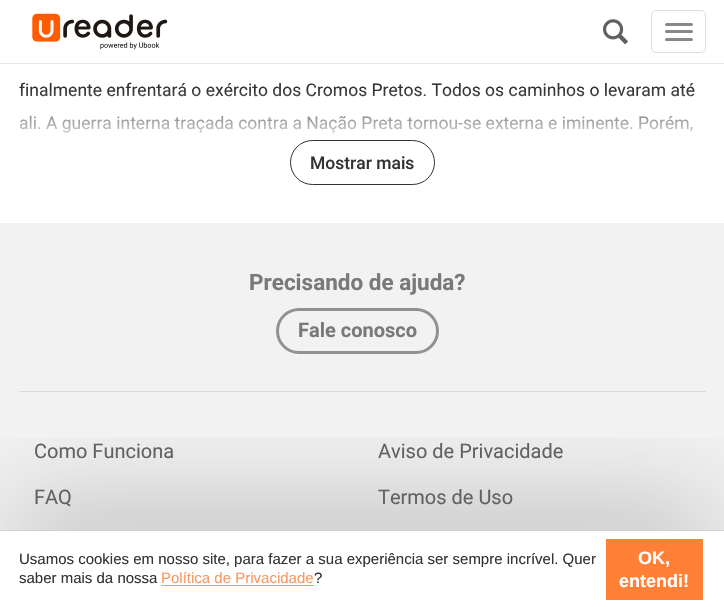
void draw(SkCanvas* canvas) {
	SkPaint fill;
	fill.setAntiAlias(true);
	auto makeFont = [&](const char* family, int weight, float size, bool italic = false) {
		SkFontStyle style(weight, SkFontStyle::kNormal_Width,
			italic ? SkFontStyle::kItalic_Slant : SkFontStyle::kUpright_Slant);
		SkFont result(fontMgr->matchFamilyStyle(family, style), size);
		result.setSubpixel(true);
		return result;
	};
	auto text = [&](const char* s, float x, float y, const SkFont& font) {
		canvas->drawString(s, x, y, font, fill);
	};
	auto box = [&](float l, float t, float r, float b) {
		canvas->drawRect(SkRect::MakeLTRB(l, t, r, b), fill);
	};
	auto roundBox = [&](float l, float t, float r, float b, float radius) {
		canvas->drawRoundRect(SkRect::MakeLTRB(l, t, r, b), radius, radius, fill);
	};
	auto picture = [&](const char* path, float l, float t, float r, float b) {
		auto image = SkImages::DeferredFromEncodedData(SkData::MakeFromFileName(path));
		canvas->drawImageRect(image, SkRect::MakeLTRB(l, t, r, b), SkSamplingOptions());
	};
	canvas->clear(0xFFFFFFFF);
	fill.setColor(0xFFE7E7E7);
	box(0, 63, 724, 64);
	picture("image0.png", 32, 13, 168, 50);
	picture("image1.png", 603, 19, 628, 45);
	fill.setStyle(SkPaint::kStroke_Style);
	fill.setStrokeWidth(1);
	fill.setColor(0xFFDDDDDD);
	canvas->drawRoundRect(SkRect::MakeLTRB(651.5f, 10.5f, 705.5f, 52.5f), 4.5f, 4.5f, fill);
	fill.setStyle(SkPaint::kFill_Style);
	fill.setColor(0xFF888888);
	roundBox(665, 23, 693, 26, 1.5f);
	roundBox(665, 30, 693, 33, 1.5f);
	roundBox(665, 38, 693, 41, 1.5f);
	fill.setStyle(SkPaint::kStroke_Style);
	fill.setColor(0xCC000000);
	canvas->drawRoundRect(SkRect::MakeLTRB(290.5f, 140.5f, 434.5f, 184.5f), 22, 22, fill);
	fill.setStyle(SkPaint::kFill_Style);
	fill.setColor(0xFFF2F2F2);
	box(0, 223, 724, 530);
	fill.setColor(0xFFDADADA);
	box(19, 391, 706, 392);
	canvas->save();
	canvas->clipRect(SkRect::MakeLTRB(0, 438, 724, 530));
	fill.setColor(0x4D000000);
	fill.setMaskFilter(SkMaskFilter::MakeBlur(kNormal_SkBlurStyle, 53));
	canvas->drawRect(SkRect::MakeLTRB(10, 515, 715, 573), fill);
	fill.setMaskFilter(nullptr);
	canvas->restore();
	fill.setColor(0xFFD1D1D1);
	box(0, 530, 724, 531);
	fill.setColor(0xFFF89864);
	box(161, 585, 314, 586);
	fill.setColor(0xFFFF8036);
	box(606, 539, 703, 600);
	fill.setStyle(SkPaint::kStroke_Style);
	fill.setStrokeWidth(3);
	fill.setColor(0xFF919191);
	canvas->drawRoundRect(SkRect::MakeLTRB(277.5f, 309.5f, 437.5f, 352.5f), 21.5f, 21.5f, fill);
	auto font1 = makeFont("Roboto", 400, 17.5f);
	fill.setStyle(SkPaint::kFill_Style);
	fill.setColor(0xFF333333);
	text("finalmente enfrentará o exército dos Cromos Pretos. Todos os caminhos o levaram até", 19, 96, font1);
	text("ali. A guerra interna traçada contra a Nação Preta tornou-se externa e iminente. Porém,", 19, 129, font1);
	{
		const SkColor colors[] = {0xFFFFFFFF, 0xCCFFFFFF, 0x00FFFFFF};
		const float stops[] = {0, 0.6f, 1};
		const SkPoint ends[] = {{363, 204}, {363, 90}};
		fill.setShader(SkGradientShader::MakeLinear(ends, colors, stops, 3, SkTileMode::kClamp));
		fill.setAlpha(255);
	}
	box(19, 91, 694, 133);
	auto font2 = makeFont("Roboto", 500, 17.5f);
	fill.setShader(nullptr);
	fill.setColor(0xFF333333);
	text("Mostrar mais", 310, 169, font2);
	auto font3 = makeFont("Liberation Sans", 400, 15);
	text("Usamos cookies em nosso site, para fazer a sua experiência ser sempre incrível. Quer", 19, 564, font3);
	text("saber mais da nossa", 19, 583, font3);
	fill.setColor(0xFFF89864);
	text("Política de Privacidade", 161, 583, font3);
	fill.setColor(0xFF333333);
	text("?", 314, 583, font3);
	auto font4 = makeFont("Liberation Sans", 700, 18);
	fill.setColor(0xFFFFFFFF);
	text("OK,", 638, 564, font4);
	text("entendi!", 619, 587, font4);
	auto font5 = makeFont("Roboto", 700, 22.5f);
	fill.setColor(0xFF797979);
	text("Precisando de ajuda?", 249, 290, font5);
	auto font6 = makeFont("Roboto", 700, 20);
	text("Fale conosco", 298, 337, font6);
	auto font7 = makeFont("Roboto", 400, 20);
	fill.setColor(0xFF616161);
	text("Como Funciona", 34, 458, font7);
	text("FAQ", 34, 504, font7);
	text("Aviso de Privacidade", 378, 458, font7);
	text("Termos de Uso", 378, 504, font7);
}
